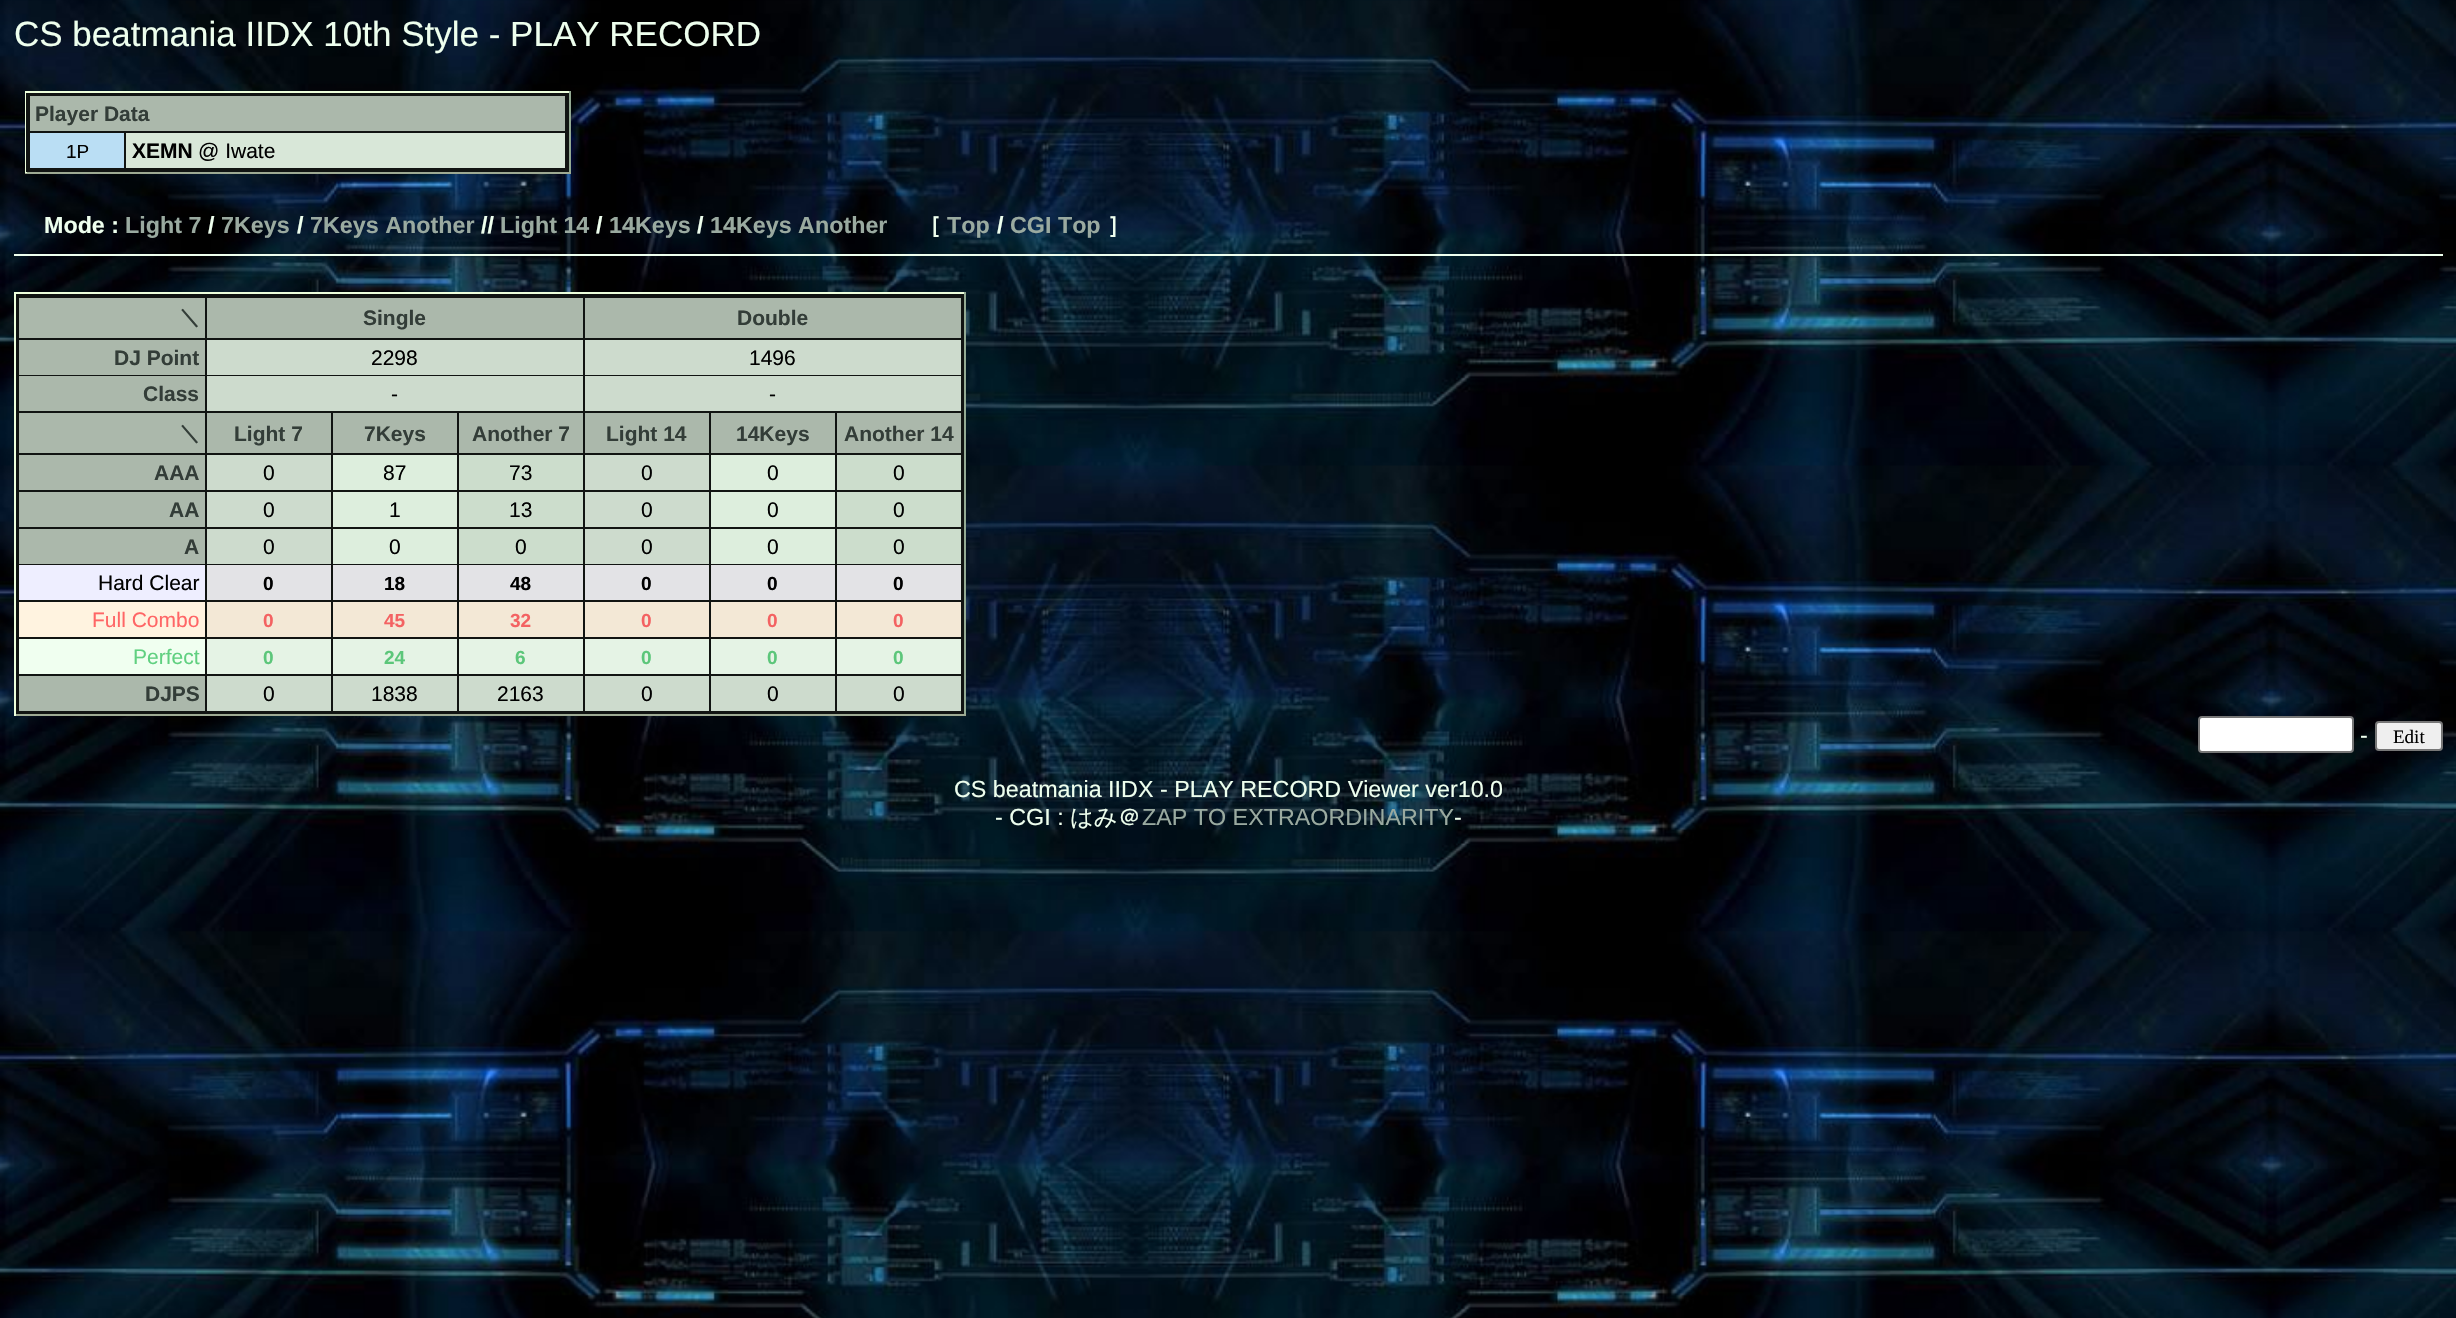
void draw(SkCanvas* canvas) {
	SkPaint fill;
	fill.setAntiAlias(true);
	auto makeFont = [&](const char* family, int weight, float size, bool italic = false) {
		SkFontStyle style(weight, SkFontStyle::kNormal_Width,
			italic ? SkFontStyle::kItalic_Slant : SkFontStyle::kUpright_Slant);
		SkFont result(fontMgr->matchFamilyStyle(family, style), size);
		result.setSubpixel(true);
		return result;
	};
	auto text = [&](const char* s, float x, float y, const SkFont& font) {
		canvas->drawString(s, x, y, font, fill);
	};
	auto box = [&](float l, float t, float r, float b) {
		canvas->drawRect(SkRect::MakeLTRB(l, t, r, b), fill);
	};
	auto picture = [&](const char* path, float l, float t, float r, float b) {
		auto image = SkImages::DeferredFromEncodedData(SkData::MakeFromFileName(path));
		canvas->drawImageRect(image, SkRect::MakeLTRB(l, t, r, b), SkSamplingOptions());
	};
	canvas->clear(0xFFFFFFFF);
	picture("image0.png", 0, 0, 2456, 1318);
	fill.setColor(0xFFEDFFDC);
	box(25, 91, 571, 93);
	fill.setColor(0xFF93AA93);
	box(569, 91, 571, 173);
	fill.setColor(0xFF9EAA93);
	box(25, 172, 571, 174);
	fill.setColor(0xFFEDFFDC);
	box(25, 91, 27, 173);
	fill.setColor(0xFF111412);
	box(26, 93, 569, 172);
	fill.setColor(0xFFABB8AB);
	box(30, 96, 565, 131);
	fill.setColor(0xFFBADEF4);
	box(30, 133, 124, 168);
	fill.setColor(0xFFD8E7D8);
	box(126, 133, 565, 168);
	fill.setColor(0xFFEEFFEE);
	box(14, 254, 2443, 256);
	fill.setColor(0xFFEDFFDC);
	box(14, 292, 966, 294);
	fill.setColor(0xFF93AA93);
	box(964, 292, 966, 716);
	fill.setColor(0xFF9EAA93);
	box(14, 714, 966, 716);
	fill.setColor(0xFFEDFFDC);
	box(14, 292, 16, 716);
	fill.setColor(0xFF111412);
	box(16, 294, 964, 714);
	fill.setColor(0xFFABB8AB);
	box(19, 298, 205, 338);
	box(207, 298, 583, 338);
	box(585, 298, 961, 338);
	box(19, 340, 205, 375);
	fill.setColor(0xFFCDDBCD);
	box(207, 340, 583, 375);
	box(585, 340, 961, 375);
	fill.setColor(0xFFABB8AB);
	box(19, 376, 205, 411);
	fill.setColor(0xFFCDDBCD);
	box(207, 376, 583, 411);
	box(585, 376, 961, 411);
	fill.setColor(0xFFABB8AB);
	box(19, 413, 205, 453);
	box(207, 413, 331, 453);
	box(333, 413, 457, 453);
	box(459, 413, 583, 453);
	box(585, 413, 709, 453);
	box(711, 413, 835, 453);
	box(837, 413, 961, 453);
	box(19, 455, 205, 490);
	fill.setColor(0xFFCDDBCD);
	box(207, 455, 331, 490);
	fill.setColor(0xFFDDEEDD);
	box(333, 455, 457, 490);
	fill.setColor(0xFFCCDDCC);
	box(459, 455, 583, 490);
	fill.setColor(0xFFCDDBCD);
	box(585, 455, 709, 490);
	fill.setColor(0xFFDDEEDD);
	box(711, 455, 835, 490);
	fill.setColor(0xFFCCDDCC);
	box(837, 455, 961, 490);
	fill.setColor(0xFFABB8AB);
	box(19, 492, 205, 527);
	fill.setColor(0xFFCDDBCD);
	box(207, 492, 331, 527);
	fill.setColor(0xFFDDEEDD);
	box(333, 492, 457, 527);
	fill.setColor(0xFFCCDDCC);
	box(459, 492, 583, 527);
	fill.setColor(0xFFCDDBCD);
	box(585, 492, 709, 527);
	fill.setColor(0xFFDDEEDD);
	box(711, 492, 835, 527);
	fill.setColor(0xFFCCDDCC);
	box(837, 492, 961, 527);
	fill.setColor(0xFFABB8AB);
	box(19, 529, 205, 564);
	fill.setColor(0xFFCDDBCD);
	box(207, 529, 331, 564);
	fill.setColor(0xFFDDEEDD);
	box(333, 529, 457, 564);
	fill.setColor(0xFFCCDDCC);
	box(459, 529, 583, 564);
	fill.setColor(0xFFCDDBCD);
	box(585, 529, 709, 564);
	fill.setColor(0xFFDDEEDD);
	box(711, 529, 835, 564);
	fill.setColor(0xFFCCDDCC);
	box(837, 529, 961, 564);
	fill.setColor(0xFFEEEEFF);
	box(19, 565, 205, 600);
	fill.setColor(0xFFE3E3E6);
	box(207, 565, 331, 600);
	box(333, 565, 457, 600);
	box(459, 565, 583, 600);
	box(585, 565, 709, 600);
	box(711, 565, 835, 600);
	box(837, 565, 961, 600);
	fill.setColor(0xFFFFF3E0);
	box(19, 602, 205, 637);
	fill.setColor(0xFFF3E8D6);
	box(207, 602, 331, 637);
	box(333, 602, 457, 637);
	box(459, 602, 583, 637);
	box(585, 602, 709, 637);
	box(711, 602, 835, 637);
	box(837, 602, 961, 637);
	fill.setColor(0xFFF0FFF0);
	box(19, 639, 205, 674);
	fill.setColor(0xFFE5F3E5);
	box(207, 639, 331, 674);
	box(333, 639, 457, 674);
	box(459, 639, 583, 674);
	box(585, 639, 709, 674);
	box(711, 639, 835, 674);
	box(837, 639, 961, 674);
	fill.setColor(0xFFABB8AB);
	box(19, 676, 205, 711);
	fill.setColor(0xFFCDDBCD);
	box(207, 676, 331, 711);
	box(333, 676, 457, 711);
	box(459, 676, 583, 711);
	box(585, 676, 709, 711);
	box(711, 676, 835, 711);
	box(837, 676, 961, 711);
	fill.setColor(0xFFFFFFFF);
	canvas->drawRoundRect(SkRect::MakeLTRB(2199, 717, 2353, 752), 3, 3, fill);
	fill.setStyle(SkPaint::kStroke_Style);
	fill.setStrokeWidth(2);
	fill.setColor(0xFF767676);
	canvas->drawRoundRect(SkRect::MakeLTRB(2199, 717, 2353, 752), 3, 3, fill);
	fill.setStyle(SkPaint::kFill_Style);
	fill.setColor(0xFFEFEFEF);
	canvas->drawRoundRect(SkRect::MakeLTRB(2376, 722, 2442, 750), 3, 3, fill);
	fill.setStyle(SkPaint::kStroke_Style);
	fill.setColor(0xFF767676);
	canvas->drawRoundRect(SkRect::MakeLTRB(2376, 722, 2442, 750), 3, 3, fill);
	auto font1 = makeFont("Liberation Sans", 400, 35);
	fill.setStyle(SkPaint::kFill_Style);
	fill.setColor(0xFFEEFFEE);
	text("CS beatmania IIDX 10th Style - PLAY RECORD", 14, 46, font1);
	auto font2 = makeFont("Liberation Sans", 700, 21);
	fill.setColor(0xFF333D38);
	text("Player Data", 35, 121, font2);
	auto font3 = makeFont("Liberation Sans", 400, 19);
	fill.setColor(0xFF000000);
	text("1P", 66, 158, font3);
	text("XEMN", 132, 158, font2);
	auto font4 = makeFont("Liberation Sans", 400, 21);
	text("@ Iwate", 198, 158, font4);
	auto font5 = makeFont("Liberation Sans", 700, 23.3f);
	fill.setColor(0xFFEEFFEE);
	text("Mode :", 44, 233, font5);
	fill.setColor(0xFF9AAAA0);
	text("Light 7", 125, 233, font5);
	fill.setColor(0xFFEEFFEE);
	text("/", 208, 233, font5);
	fill.setColor(0xFF9AAAA0);
	text("7Keys", 221, 233, font5);
	fill.setColor(0xFFEEFFEE);
	text("/", 297, 233, font5);
	fill.setColor(0xFF9AAAA0);
	text("7Keys Another", 310, 233, font5);
	fill.setColor(0xFFEEFFEE);
	text("//", 481, 233, font5);
	fill.setColor(0xFF9AAAA0);
	text("Light 14", 500, 233, font5);
	fill.setColor(0xFFEEFFEE);
	text("/", 596, 233, font5);
	fill.setColor(0xFF9AAAA0);
	text("14Keys", 609, 233, font5);
	fill.setColor(0xFFEEFFEE);
	text("/", 697, 233, font5);
	fill.setColor(0xFF9AAAA0);
	text("14Keys Another", 710, 233, font5);
	auto font6 = makeFont("WenQuanYi Zen Hei", 700, 23.3f);
	fill.setColor(0xFFEEFFEE);
	text("［", 918, 233, font6);
	fill.setColor(0xFF9AAAA0);
	text("Top", 947, 233, font5);
	fill.setColor(0xFFEEFFEE);
	text("/", 997, 233, font5);
	fill.setColor(0xFF9AAAA0);
	text("CGI Top", 1010, 233, font5);
	fill.setColor(0xFFEEFFEE);
	text("］", 1107, 233, font6);
	auto font7 = makeFont("WenQuanYi Zen Hei", 700, 21);
	fill.setColor(0xFF333D38);
	text("＼", 179, 324, font7);
	text("Single", 363, 325, font2);
	text("Double", 737, 325, font2);
	text("DJ Point", 114, 365, font2);
	fill.setColor(0xFF000000);
	text("2298", 371, 365, font4);
	text("1496", 749, 365, font4);
	fill.setColor(0xFF333D38);
	text("Class", 143, 401, font2);
	fill.setColor(0xFF000000);
	text("-", 391, 401, font4);
	text("-", 769, 401, font4);
	fill.setColor(0xFF333D38);
	text("＼", 179, 440, font7);
	text("Light 7", 234, 441, font2);
	text("7Keys", 364, 441, font2);
	text("Another 7", 472, 441, font2);
	text("Light 14", 606, 441, font2);
	text("14Keys", 736, 441, font2);
	text("Another 14", 844, 441, font2);
	text("AAA", 154, 480, font2);
	fill.setColor(0xFF000000);
	text("0", 263, 480, font4);
	text("87", 383, 480, font4);
	text("73", 509, 480, font4);
	text("0", 641, 480, font4);
	text("0", 767, 480, font4);
	text("0", 893, 480, font4);
	fill.setColor(0xFF333D38);
	text("AA", 169, 517, font2);
	fill.setColor(0xFF000000);
	text("0", 263, 517, font4);
	text("1", 389, 517, font4);
	text("13", 509, 517, font4);
	text("0", 641, 517, font4);
	text("0", 767, 517, font4);
	text("0", 893, 517, font4);
	fill.setColor(0xFF333D38);
	text("A", 184, 554, font2);
	fill.setColor(0xFF000000);
	text("0", 263, 554, font4);
	text("0", 389, 554, font4);
	text("0", 515, 554, font4);
	text("0", 641, 554, font4);
	text("0", 767, 554, font4);
	text("0", 893, 554, font4);
	text("Hard Clear", 98, 590, font4);
	auto font8 = makeFont("Liberation Sans", 700, 19);
	text("0", 263, 590, font8);
	text("18", 384, 590, font8);
	text("48", 510, 590, font8);
	text("0", 641, 590, font8);
	text("0", 767, 590, font8);
	text("0", 893, 590, font8);
	fill.setColor(0xFFFF6666);
	text("Full Combo", 92, 627, font4);
	fill.setColor(0xFFF36262);
	text("0", 263, 627, font8);
	text("45", 384, 627, font8);
	text("32", 510, 627, font8);
	text("0", 641, 627, font8);
	text("0", 767, 627, font8);
	text("0", 893, 627, font8);
	fill.setColor(0xFF60D080);
	text("Perfect", 133, 664, font4);
	fill.setColor(0xFF5CC67A);
	text("0", 263, 664, font8);
	text("24", 384, 664, font8);
	text("6", 515, 664, font8);
	text("0", 641, 664, font8);
	text("0", 767, 664, font8);
	text("0", 893, 664, font8);
	fill.setColor(0xFF333D38);
	text("DJPS", 145, 701, font2);
	fill.setColor(0xFF000000);
	text("0", 263, 701, font4);
	text("1838", 371, 701, font4);
	text("2163", 497, 701, font4);
	text("0", 641, 701, font4);
	text("0", 767, 701, font4);
	text("0", 893, 701, font4);
	auto font9 = makeFont("Liberation Sans", 400, 23.3f);
	fill.setColor(0xFFEEFFEE);
	text("-", 2360, 743, font9);
	auto font10 = makeFont("Liberation Serif", 400, 19);
	fill.setColor(0xFF000000);
	text("Edit", 2393, 743, font10);
	fill.setColor(0xFFEEFFEE);
	text("CS beatmania IIDX - PLAY RECORD Viewer ver10.0", 954, 797, font9);
	text("- CGI :", 995, 825, font9);
	auto font11 = makeFont("WenQuanYi Zen Hei", 500, 23.3f);
	text("はみ＠", 1070, 825, font11);
	fill.setColor(0xFF9AAAA0);
	text("ZAP TO EXTRAORDINARITY", 1142, 825, font9);
	fill.setColor(0xFFEEFFEE);
	text("-", 1454, 825, font9);
}
